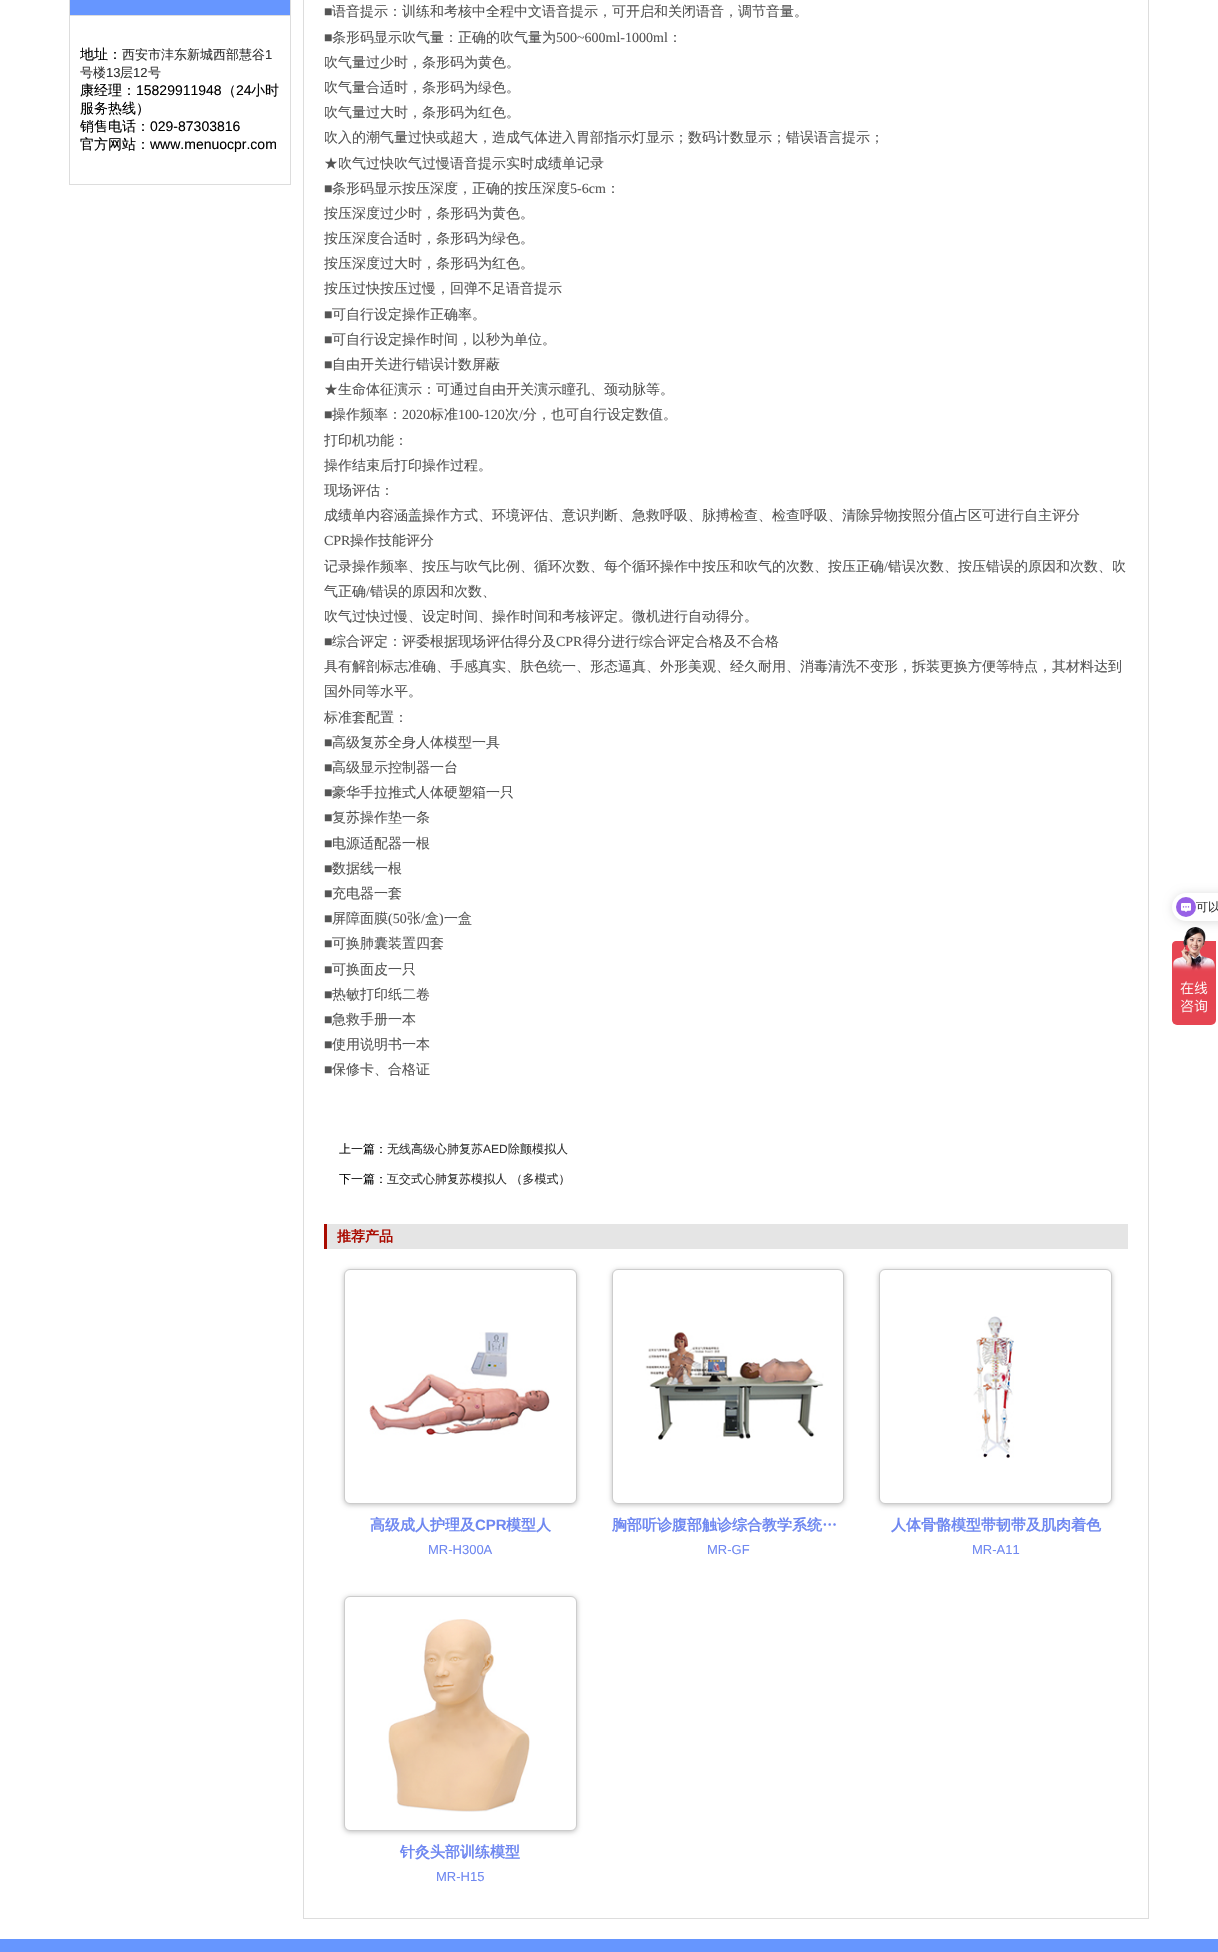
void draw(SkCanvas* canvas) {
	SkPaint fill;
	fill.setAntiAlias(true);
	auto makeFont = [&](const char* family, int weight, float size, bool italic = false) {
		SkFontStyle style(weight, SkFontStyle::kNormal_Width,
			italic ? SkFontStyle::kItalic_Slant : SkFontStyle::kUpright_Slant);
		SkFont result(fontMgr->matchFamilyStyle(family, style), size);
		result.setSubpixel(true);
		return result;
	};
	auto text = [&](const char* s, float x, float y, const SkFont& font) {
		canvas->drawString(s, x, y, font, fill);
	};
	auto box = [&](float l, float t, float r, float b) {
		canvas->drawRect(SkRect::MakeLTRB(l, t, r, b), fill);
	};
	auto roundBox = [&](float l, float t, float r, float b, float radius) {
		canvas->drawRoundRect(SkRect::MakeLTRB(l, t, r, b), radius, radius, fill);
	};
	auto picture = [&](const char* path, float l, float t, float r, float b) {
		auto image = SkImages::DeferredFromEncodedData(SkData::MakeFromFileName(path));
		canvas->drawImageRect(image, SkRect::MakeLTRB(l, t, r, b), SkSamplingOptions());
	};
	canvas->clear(0xFFFFFFFF);
	fill.setStyle(SkPaint::kStroke_Style);
	fill.setStrokeWidth(1);
	fill.setColor(0xFFDDDDDD);
	canvas->drawRect(SkRect::MakeLTRB(69.5f, -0.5f, 290.5f, 184.5f), fill);
	fill.setStyle(SkPaint::kFill_Style);
	fill.setColor(0xFF6696FF);
	box(70, 0, 290, 15);
	fill.setColor(0xFFDDDDDD);
	box(70, 15, 290, 16);
	fill.setStyle(SkPaint::kStroke_Style);
	canvas->drawRect(SkRect::MakeLTRB(303.5f, -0.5f, 1148.5f, 1918.5f), fill);
	fill.setStyle(SkPaint::kFill_Style);
	fill.setColor(0xFFE5E5E5);
	box(327, 1224, 1128, 1249);
	fill.setColor(0xFFAA0B00);
	box(324, 1224, 327, 1249);
	fill.setColor(0x40000000);
	fill.setMaskFilter(SkMaskFilter::MakeBlur(kNormal_SkBlurStyle, 2.5f));
	canvas->drawRoundRect(SkRect::MakeLTRB(344, 1270, 577, 1505), 6, 6, fill);
	fill.setMaskFilter(nullptr);
	fill.setColor(0xFFFFFFFF);
	canvas->drawRoundRect(SkRect::MakeLTRB(344.5f, 1269.5f, 576.5f, 1503.5f), 5.5f, 5.5f, fill);
	fill.setStyle(SkPaint::kStroke_Style);
	fill.setColor(0xFFCCCCCC);
	canvas->drawRoundRect(SkRect::MakeLTRB(344.5f, 1269.5f, 576.5f, 1503.5f), 5.5f, 5.5f, fill);
	picture("image0.png", 369, 1332, 550, 1435);
	fill.setStyle(SkPaint::kFill_Style);
	fill.setColor(0x40000000);
	fill.setMaskFilter(SkMaskFilter::MakeBlur(kNormal_SkBlurStyle, 2.5f));
	canvas->drawRoundRect(SkRect::MakeLTRB(612, 1270, 844, 1505), 6, 6, fill);
	fill.setMaskFilter(nullptr);
	fill.setColor(0xFFFFFFFF);
	canvas->drawRoundRect(SkRect::MakeLTRB(612.5f, 1269.5f, 843.5f, 1503.5f), 5.5f, 5.5f, fill);
	fill.setStyle(SkPaint::kStroke_Style);
	fill.setColor(0xFFCCCCCC);
	canvas->drawRoundRect(SkRect::MakeLTRB(612.5f, 1269.5f, 843.5f, 1503.5f), 5.5f, 5.5f, fill);
	picture("image1.png", 645, 1332, 824, 1440);
	fill.setStyle(SkPaint::kFill_Style);
	fill.setColor(0x40000000);
	fill.setMaskFilter(SkMaskFilter::MakeBlur(kNormal_SkBlurStyle, 2.5f));
	canvas->drawRoundRect(SkRect::MakeLTRB(879, 1270, 1112, 1505), 6, 6, fill);
	fill.setMaskFilter(nullptr);
	fill.setColor(0xFFFFFFFF);
	canvas->drawRoundRect(SkRect::MakeLTRB(879.5f, 1269.5f, 1111.5f, 1503.5f), 5.5f, 5.5f, fill);
	fill.setStyle(SkPaint::kStroke_Style);
	fill.setColor(0xFFCCCCCC);
	canvas->drawRoundRect(SkRect::MakeLTRB(879.5f, 1269.5f, 1111.5f, 1503.5f), 5.5f, 5.5f, fill);
	picture("image2.png", 973, 1316, 1014, 1458);
	fill.setStyle(SkPaint::kFill_Style);
	fill.setColor(0x40000000);
	fill.setMaskFilter(SkMaskFilter::MakeBlur(kNormal_SkBlurStyle, 2.5f));
	canvas->drawRoundRect(SkRect::MakeLTRB(344, 1597, 577, 1832), 6, 6, fill);
	fill.setMaskFilter(nullptr);
	fill.setColor(0xFFFFFFFF);
	canvas->drawRoundRect(SkRect::MakeLTRB(344.5f, 1596.5f, 576.5f, 1830.5f), 5.5f, 5.5f, fill);
	fill.setStyle(SkPaint::kStroke_Style);
	fill.setColor(0xFFCCCCCC);
	canvas->drawRoundRect(SkRect::MakeLTRB(344.5f, 1596.5f, 576.5f, 1830.5f), 5.5f, 5.5f, fill);
	picture("image3.png", 388, 1619, 530, 1812);
	fill.setStyle(SkPaint::kFill_Style);
	fill.setColor(0x1F000000);
	fill.setMaskFilter(SkMaskFilter::MakeBlur(kNormal_SkBlurStyle, 4));
	canvas->drawRoundRect(SkRect::MakeLTRB(1172, 893, 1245, 923), 15, 15, fill);
	fill.setMaskFilter(nullptr);
	fill.setColor(0xFFFFFFFF);
	roundBox(1172, 893, 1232, 921, 14);
	fill.setColor(0xFF9861E6);
	canvas->drawCircle(1186, 907, 10, fill);
	picture("image4.png", 1181, 903, 1191, 912);
	picture("image5.png", 1172, 927, 1216, 1025);
	fill.setColor(0xFF6696FF);
	box(0, 1939, 1218, 1952);
	auto font1 = makeFont("WenQuanYi Zen Hei", 500, 14);
	fill.setColor(0xFF000000);
	text("地址：", 80, 59, font1);
	auto font2 = makeFont("WenQuanYi Zen Hei", 500, 13);
	fill.setColor(0xFF333333);
	text("西安市沣东新城西部慧谷", 122, 59, font2);
	auto font3 = makeFont("Liberation Sans", 400, 13);
	text("1", 265, 59, font3);
	text("号楼", 80, 77, font2);
	text("13", 106, 77, font3);
	text("层", 120, 77, font2);
	text("12", 133, 77, font3);
	text("号", 148, 77, font2);
	fill.setColor(0xFF000000);
	text("康经理：", 80, 95, font1);
	auto font4 = makeFont("Liberation Sans", 400, 14);
	text("15829911948", 136, 95, font4);
	text("（", 222, 95, font1);
	text("24", 236, 95, font4);
	text("小时", 251, 95, font1);
	text("服务热线）", 80, 113, font1);
	text("销售电话：", 80, 131, font1);
	text("029-87303816", 150, 131, font4);
	text("官方网站：", 80, 149, font1);
	text("www.menuocpr.com", 150, 149, font4);
	auto font5 = makeFont("Liberation Serif", 400, 14);
	fill.setColor(0xFF555555);
	text("■", 324, 16, font5);
	text("语音提示：训练和考核中全程中文语音提示，可开启和关闭语音，调节音量。", 332, 16, font1);
	text("■", 324, 42, font5);
	text("条形码显示吹气量：正确的吹气量为", 332, 42, font1);
	text("500~600ml-1000ml", 556, 42, font5);
	text("：", 668, 42, font1);
	text("吹气量过少时，条形码为黄色。", 324, 67, font1);
	text("吹气量合适时，条形码为绿色。", 324, 92, font1);
	text("吹气量过大时，条形码为红色。", 324, 117, font1);
	text("吹入的潮气量过快或超大，造成气体进入胃部指示灯显示；数码计数显示；错误语言提示；", 324, 142, font1);
	text("★吹气过快吹气过慢语音提示实时成绩单记录", 324, 168, font1);
	text("■", 324, 193, font5);
	text("条形码显示按压深度，正确的按压深度", 332, 193, font1);
	text("5-6cm", 570, 193, font5);
	text("：", 606, 193, font1);
	text("按压深度过少时，条形码为黄色。", 324, 218, font1);
	text("按压深度合适时，条形码为绿色。", 324, 243, font1);
	text("按压深度过大时，条形码为红色。", 324, 268, font1);
	text("按压过快按压过慢，回弹不足语音提示", 324, 293, font1);
	text("■", 324, 319, font5);
	text("可自行设定操作正确率。", 332, 319, font1);
	text("■", 324, 344, font5);
	text("可自行设定操作时间，以秒为单位。", 332, 344, font1);
	text("■", 324, 369, font5);
	text("自由开关进行错误计数屏蔽", 332, 369, font1);
	text("★生命体征演示：可通过自由开关演示瞳孔、颈动脉等。", 324, 394, font1);
	text("■", 324, 419, font5);
	text("操作频率：", 332, 419, font1);
	text("2020", 402, 419, font5);
	text("标准", 430, 419, font1);
	text("100-120", 458, 419, font5);
	text("次", 505, 419, font1);
	text("/", 519, 419, font5);
	text("分，也可自行设定数值。", 523, 419, font1);
	text("打印机功能：", 324, 445, font1);
	text("操作结束后打印操作过程。", 324, 470, font1);
	text("现场评估：", 324, 495, font1);
	text("成绩单内容涵盖操作方式、环境评估、意识判断、急救呼吸、脉搏检查、检查呼吸、清除异物按照分值占区可进行自主评分", 324, 520, font1);
	text("CPR", 324, 545, font5);
	text("操作技能评分", 350, 545, font1);
	text("记录操作频率、按压与吹气比例、循环次数、每个循环操作中按压和吹气的次数、按压正确", 324, 571, font1);
	text("/", 884, 571, font5);
	text("错误次数、按压错误的原因和次数、吹", 888, 571, font1);
	text("气正确", 324, 596, font1);
	text("/", 366, 596, font5);
	text("错误的原因和次数、", 370, 596, font1);
	text("吹气过快过慢、设定时间、操作时间和考核评定。微机进行自动得分。", 324, 621, font1);
	text("■", 324, 646, font5);
	text("综合评定：评委根据现场评估得分及", 332, 646, font1);
	text("CPR", 556, 646, font5);
	text("得分进行综合评定合格及不合格", 583, 646, font1);
	text("具有解剖标志准确、手感真实、肤色统一、形态逼真、外形美观、经久耐用、消毒清洗不变形，拆装更换方便等特点，其材料达到", 324, 671, font1);
	text("国外同等水平。", 324, 696, font1);
	text("标准套配置：", 324, 722, font1);
	text("■", 324, 747, font5);
	text("高级复苏全身人体模型一具", 332, 747, font1);
	text("■", 324, 772, font5);
	text("高级显示控制器一台", 332, 772, font1);
	text("■", 324, 797, font5);
	text("豪华手拉推式人体硬塑箱一只", 332, 797, font1);
	text("■", 324, 822, font5);
	text("复苏操作垫一条", 332, 822, font1);
	text("■", 324, 848, font5);
	text("电源适配器一根", 332, 848, font1);
	text("■", 324, 873, font5);
	text("数据线一根", 332, 873, font1);
	text("■", 324, 898, font5);
	text("充电器一套", 332, 898, font1);
	text("■", 324, 923, font5);
	text("屏障面膜", 332, 923, font1);
	text("(50", 388, 923, font5);
	text("张", 407, 923, font1);
	text("/", 421, 923, font5);
	text("盒", 425, 923, font1);
	text(")", 439, 923, font5);
	text("一盒", 444, 923, font1);
	text("■", 324, 948, font5);
	text("可换肺囊装置四套", 332, 948, font1);
	text("■", 324, 974, font5);
	text("可换面皮一只", 332, 974, font1);
	text("■", 324, 999, font5);
	text("热敏打印纸二卷", 332, 999, font1);
	text("■", 324, 1024, font5);
	text("急救手册一本", 332, 1024, font1);
	text("■", 324, 1049, font5);
	text("使用说明书一本", 332, 1049, font1);
	text("■", 324, 1074, font5);
	text("保修卡、合格证", 332, 1074, font1);
	auto font6 = makeFont("WenQuanYi Zen Hei", 500, 12);
	fill.setColor(0xFF000000);
	text("上一篇：", 339, 1153, font6);
	fill.setColor(0xFF333333);
	text("无线高级心肺复苏", 387, 1153, font6);
	auto font7 = makeFont("Liberation Sans", 400, 12);
	text("AED", 483, 1153, font7);
	text("除颤模拟人", 508, 1153, font6);
	fill.setColor(0xFF000000);
	text("下一篇：", 339, 1183, font6);
	fill.setColor(0xFF333333);
	text("互交式心肺复苏模拟人 （多模式）", 387, 1183, font6);
	auto font8 = makeFont("WenQuanYi Zen Hei", 700, 14);
	fill.setColor(0xFFAA0B00);
	text("推荐产品", 337, 1241, font8);
	auto font9 = makeFont("WenQuanYi Zen Hei", 700, 15);
	fill.setColor(0xFF6F88F1);
	text("高级成人护理及", 370, 1530, font9);
	auto font10 = makeFont("Liberation Sans", 700, 15);
	text("CPR", 475, 1530, font10);
	text("模型人", 506, 1530, font9);
	text("MR-H300A", 428, 1554, font3);
	text("胸部听诊腹部触诊综合教学系统…", 612, 1530, font9);
	text("MR-GF", 707, 1554, font3);
	text("人体骨骼模型带韧带及肌肉着色", 891, 1530, font9);
	text("MR-A11", 972, 1554, font3);
	text("针灸头部训练模型", 400, 1857, font9);
	text("MR-H15", 436, 1881, font3);
	fill.setColor(0xFF333333);
	text("可以", 1196, 911, font6);
}
